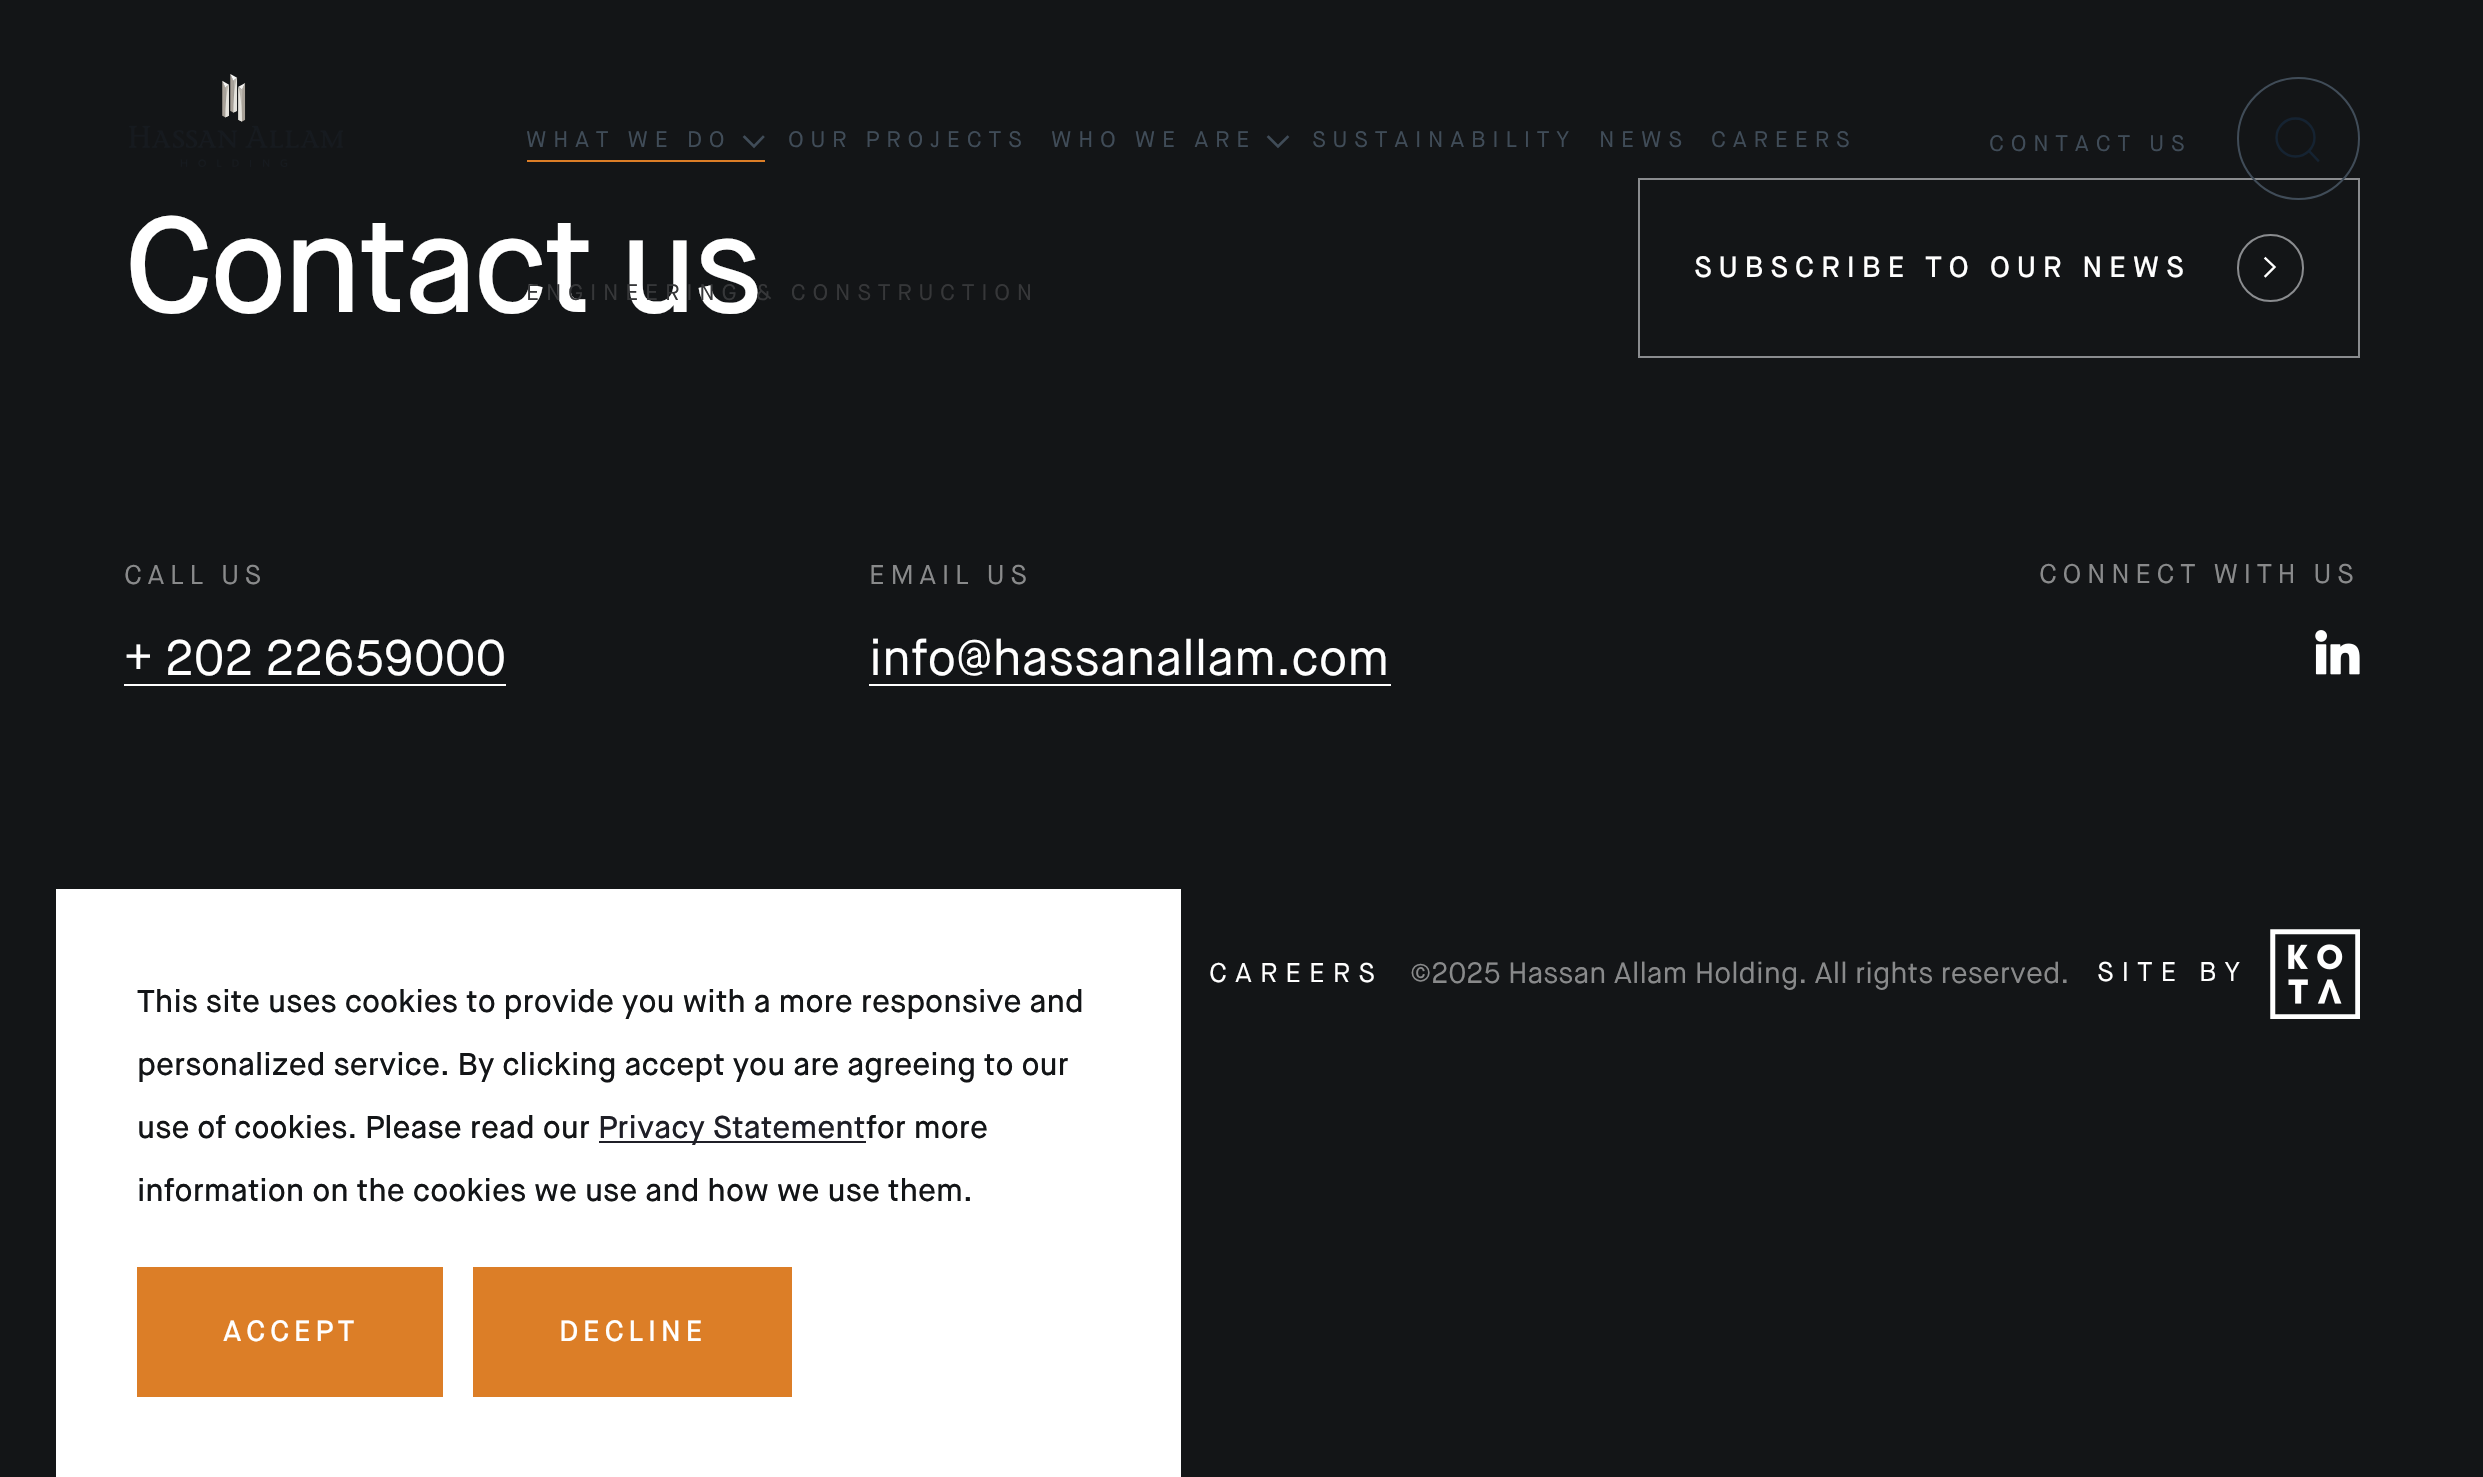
void draw(SkCanvas* canvas) {
	SkPaint fill;
	fill.setAntiAlias(true);
	auto makeFont = [&](const char* family, int weight, float size, bool italic = false) {
		SkFontStyle style(weight, SkFontStyle::kNormal_Width,
			italic ? SkFontStyle::kItalic_Slant : SkFontStyle::kUpright_Slant);
		SkFont result(fontMgr->matchFamilyStyle(family, style), size);
		result.setSubpixel(true);
		return result;
	};
	auto text = [&](const char* s, float x, float y, const SkFont& font) {
		canvas->drawString(s, x, y, font, fill);
	};
	auto spacedText = [&](const char* s, float x, float y, const SkFont& font, const SkPaint& ink, float letter, float word) {
		std::vector<SkGlyphID> glyphs(font.countText(s, strlen(s), SkTextEncoding::kUTF8));
		std::vector<float> xs(glyphs.size());
		font.textToGlyphs(s, strlen(s), SkTextEncoding::kUTF8, glyphs);
		font.getXPos(glyphs, xs, x);
		float extra = 0;
		for (size_t i = 0; i < glyphs.size(); i++) {
			xs[i] += extra;
			extra += letter + word * (glyphs[i] == font.unicharToGlyph(' '));
		}
		canvas->drawTextBlob(SkTextBlob::MakeFromPosHGlyphs(glyphs, xs, y, font), 0, 0, ink);
	};
	auto box = [&](float l, float t, float r, float b) {
		canvas->drawRect(SkRect::MakeLTRB(l, t, r, b), fill);
	};
	auto picture = [&](const char* path, float l, float t, float r, float b) {
		auto image = SkImages::DeferredFromEncodedData(SkData::MakeFromFileName(path));
		canvas->drawImageRect(image, SkRect::MakeLTRB(l, t, r, b), SkSamplingOptions());
	};
	canvas->clear(0xFF131517);
	picture("image0.png", 129, 74, 343, 167);
	fill.setStyle(SkPaint::kStroke_Style);
	fill.setStrokeWidth(2.6f);
	fill.setStrokeCap(SkPaint::kSquare_Cap);
	fill.setColor(0xFF404C58);
	canvas->drawPath(SkPathBuilder().moveTo(744.5f, 137).lineTo(754, 146.5f).lineTo(763, 137).detach(), fill);
	fill.setStyle(SkPaint::kFill_Style);
	fill.setColor(0xFFDC7E27);
	box(527, 160, 765, 162);
	fill.setStyle(SkPaint::kStroke_Style);
	fill.setColor(0xFF404C58);
	canvas->drawPath(SkPathBuilder().moveTo(1268.5f, 137).lineTo(1278, 146.5f).lineTo(1287.5f, 137).detach(), fill);
	fill.setStrokeWidth(2);
	fill.setStrokeCap(SkPaint::kButt_Cap);
	fill.setColor(0xFF8A8C8F);
	canvas->drawRect(SkRect::MakeLTRB(1639, 179, 2359, 357), fill);
	fill.setColor(0xFF404C58);
	canvas->drawCircle(2298.5f, 138.5f, 60.5f, fill);
	fill.setStrokeWidth(2.3f);
	fill.setColor(0xFF152332);
	canvas->drawCircle(2295.5f, 137.5f, 19, fill);
	fill.setStrokeCap(SkPaint::kSquare_Cap);
	fill.setStrokeJoin(SkPaint::kRound_Join);
	canvas->drawPath(SkPathBuilder().moveTo(2318, 160.5f).lineTo(2309.5f, 151.5f).detach(), fill);
	fill.setStrokeWidth(2);
	fill.setStrokeCap(SkPaint::kButt_Cap);
	fill.setStrokeJoin(SkPaint::kMiter_Join);
	fill.setColor(0xFF8A8C8F);
	canvas->drawRoundRect(SkRect::MakeLTRB(2238, 235, 2303, 301), 32.5f, 32.5f, fill);
	fill.setStrokeWidth(2.4f);
	fill.setStrokeCap(SkPaint::kSquare_Cap);
	fill.setColor(0xFFFFFFFF);
	canvas->drawPath(SkPathBuilder().moveTo(2265.5f, 276).lineTo(2274.5f, 267).lineTo(2265.5f, 258.5f).detach(), fill);
	fill.setStyle(SkPaint::kFill_Style);
	box(124, 684, 506, 686);
	box(869, 684, 1391, 686);
	picture("image1.png", 2315, 630, 2360, 675);
	picture("image2.png", 2270, 929, 2360, 1019);
	box(56, 889, 1181, 1477);
	fill.setColor(0xFF1F1F27);
	box(599, 1141, 866, 1143);
	fill.setColor(0xFFDC7E27);
	box(137, 1267, 443, 1397);
	box(473, 1267, 792, 1397);
	auto font1 = makeFont("Maison Neue", 400, 22.5f);
	fill.setColor(0xFF404C58);
	spacedText("WHAT WE DO", 526, 147, font1, fill, 6.75f, 0);
	spacedText("OUR PROJECTS", 788, 147, font1, fill, 6.75f, 0);
	spacedText("WHO WE ARE", 1051, 147, font1, fill, 6.75f, 0);
	spacedText("SUSTAINABILITY", 1312, 147, font1, fill, 6.75f, 0);
	spacedText("NEWS", 1599, 147, font1, fill, 6.75f, 0);
	spacedText("CAREERS", 1711, 147, font1, fill, 6.75f, 0);
	spacedText("CONTACT US", 1989, 151, font1, fill, 6.75f, 0);
	auto font2 = makeFont("Maison Neue", 500, 135);
	fill.setColor(0xFFFFFFFF);
	spacedText("Contact us", 124, 312, font2, fill, -4, 0);
	fill.setColor(0xFF363739);
	spacedText("ENGINEERING & CONSTRUCTION", 526, 300, font1, fill, 6.75f, 0);
	auto font3 = makeFont("Maison Neue", 500, 29.25f);
	fill.setColor(0xFFFFFFFF);
	spacedText("SUBSCRIBE TO OUR NEWS", 1694, 277, font3, fill, 6.75f, 0);
	auto font4 = makeFont("Maison Neue", 400, 27);
	fill.setColor(0xFF898A8B);
	spacedText("CALL US", 124, 584, font4, fill, 5.6f, 0);
	auto font5 = makeFont("Maison Neue", 400, 49.5f);
	fill.setColor(0xFFFFFFFF);
	text("+ 202 22659000", 124, 675, font5);
	fill.setColor(0xFF898A8B);
	spacedText("EMAIL US", 869, 584, font4, fill, 5.6f, 0);
	fill.setColor(0xFFFFFFFF);
	text("info@hassanallam.com", 869, 675, font5);
	fill.setColor(0xFF898A8B);
	spacedText("CONNECT WITH US", 2039, 583, font4, fill, 5.6f, 0);
	fill.setColor(0xFFFFFFFF);
	spacedText("CAREERS", 1209, 982, font4, fill, 8, 0);
	auto font6 = makeFont("Maison Neue", 400, 29.25f);
	fill.setColor(0xFF898A8B);
	text("©2025 Hassan Allam Holding. All rights reserved.", 1410, 983, font6);
	fill.setColor(0xFFFFFFFF);
	spacedText("SITE BY", 2097, 981, font4, fill, 8, 0);
	auto font7 = makeFont("Maison Neue", 500, 31.5f);
	fill.setColor(0xFF131517);
	text("This site uses cookies to provide you with a more responsive and", 137, 1012, font7);
	text("personalized service. By clicking accept you are agreeing to our", 137, 1075, font7);
	text("use of cookies. Please read our", 137, 1138, font7);
	fill.setColor(0xFF1F1F27);
	text("Privacy Statement", 598, 1138, font7);
	fill.setColor(0xFF131517);
	text("for more", 866, 1138, font7);
	text("information on the cookies we use and how we use them.", 137, 1201, font7);
	fill.setColor(0xFFFFFFFF);
	spacedText("ACCEPT", 223, 1341, font3, fill, 4.5f, 0);
	spacedText("DECLINE", 559, 1341, font3, fill, 4.5f, 0);
}
